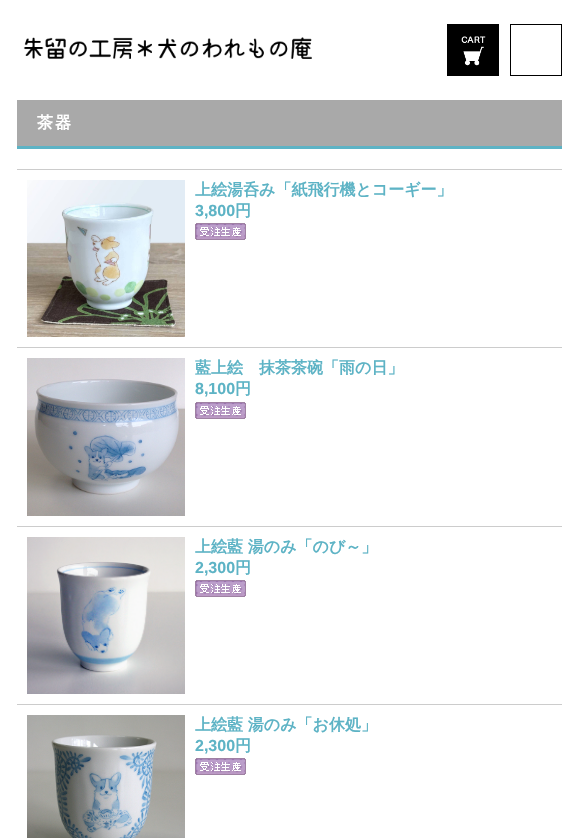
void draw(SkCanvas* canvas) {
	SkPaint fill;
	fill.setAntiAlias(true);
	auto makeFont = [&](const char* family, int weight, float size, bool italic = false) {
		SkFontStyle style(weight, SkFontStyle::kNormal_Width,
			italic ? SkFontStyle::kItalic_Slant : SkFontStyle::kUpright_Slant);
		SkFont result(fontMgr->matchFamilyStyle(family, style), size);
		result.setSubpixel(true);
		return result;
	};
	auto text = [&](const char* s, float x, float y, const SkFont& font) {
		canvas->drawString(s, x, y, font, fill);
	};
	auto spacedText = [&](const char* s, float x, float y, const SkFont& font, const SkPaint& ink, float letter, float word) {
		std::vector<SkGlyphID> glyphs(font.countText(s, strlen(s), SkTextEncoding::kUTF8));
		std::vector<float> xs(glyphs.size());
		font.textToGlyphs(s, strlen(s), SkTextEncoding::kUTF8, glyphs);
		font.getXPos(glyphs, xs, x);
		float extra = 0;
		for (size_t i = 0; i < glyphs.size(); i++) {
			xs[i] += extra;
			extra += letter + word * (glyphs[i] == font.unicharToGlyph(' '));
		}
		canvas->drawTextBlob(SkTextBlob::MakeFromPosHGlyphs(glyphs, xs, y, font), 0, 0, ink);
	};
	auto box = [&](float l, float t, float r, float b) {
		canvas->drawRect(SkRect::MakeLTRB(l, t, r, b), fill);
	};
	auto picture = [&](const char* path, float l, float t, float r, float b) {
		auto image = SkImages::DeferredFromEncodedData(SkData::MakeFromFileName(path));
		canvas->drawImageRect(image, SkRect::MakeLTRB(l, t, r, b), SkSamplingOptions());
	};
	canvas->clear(0xFFFFFFFF);
	fill.setStyle(SkPaint::kStroke_Style);
	fill.setStrokeWidth(1);
	fill.setColor(0xFF000000);
	canvas->drawRect(SkRect::MakeLTRB(510.5f, 24.5f, 561.5f, 75.5f), fill);
	picture("image0.png", 23, 37, 312, 59);
	fill.setStyle(SkPaint::kFill_Style);
	box(447, 24, 499, 76);
	picture("image1.png", 461, 36, 486, 66);
	fill.setColor(0xFFA9A9A9);
	box(17, 100, 562, 146);
	fill.setColor(0xFF5DB3C5);
	box(17, 146, 562, 149);
	fill.setColor(0xFFCCCCCC);
	box(17, 169, 562, 170);
	box(17, 347, 562, 348);
	picture("image2.png", 27, 180, 185, 337);
	picture("image3.png", 195, 223, 246, 240);
	box(17, 526, 562, 527);
	picture("image4.png", 27, 358, 185, 516);
	picture("image3.png", 195, 402, 246, 419);
	box(17, 704, 562, 705);
	picture("image5.png", 27, 537, 185, 694);
	picture("image3.png", 195, 580, 246, 597);
	picture("image6.png", 27, 715, 185, 838);
	picture("image3.png", 195, 758, 246, 775);
	auto font1 = makeFont("WenQuanYi Zen Hei", 700, 16);
	fill.setColor(0xFFFFFFFF);
	spacedText("茶器", 37, 128, font1, fill, 2, 0);
	fill.setColor(0xFF5DB3C5);
	text("上絵湯呑み「紙飛行機とコーギー」", 195, 195, font1);
	auto font2 = makeFont("Liberation Sans", 700, 16);
	text("3,800", 195, 216, font2);
	text("円", 235, 216, font1);
	text("藍上絵　抹茶茶碗「雨の日」", 195, 373, font1);
	text("8,100", 195, 394, font2);
	text("円", 235, 394, font1);
	text("上絵藍 湯のみ「のび～」", 195, 552, font1);
	text("2,300", 195, 573, font2);
	text("円", 235, 573, font1);
	text("上絵藍 湯のみ「お休処」", 195, 730, font1);
	text("2,300", 195, 751, font2);
	text("円", 235, 751, font1);
}
